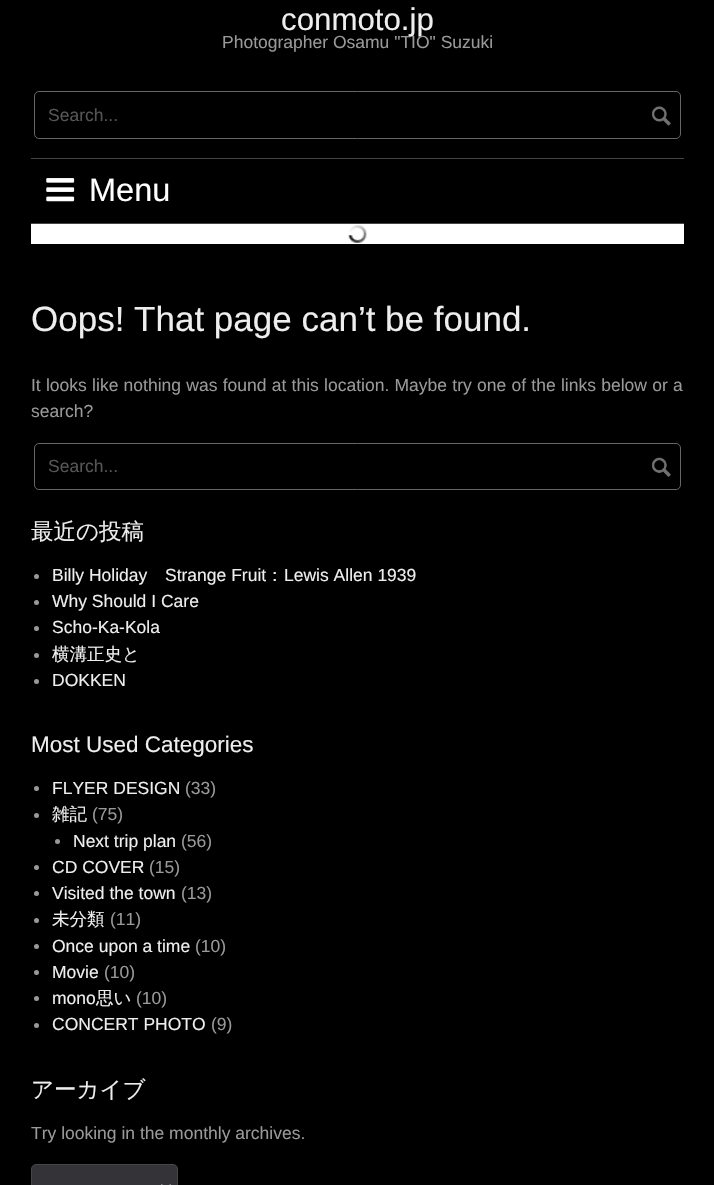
void draw(SkCanvas* canvas) {
	SkPaint fill;
	fill.setAntiAlias(true);
	auto makeFont = [&](const char* family, int weight, float size, bool italic = false) {
		SkFontStyle style(weight, SkFontStyle::kNormal_Width,
			italic ? SkFontStyle::kItalic_Slant : SkFontStyle::kUpright_Slant);
		SkFont result(fontMgr->matchFamilyStyle(family, style), size);
		result.setSubpixel(true);
		return result;
	};
	auto text = [&](const char* s, float x, float y, const SkFont& font) {
		canvas->drawString(s, x, y, font, fill);
	};
	auto spacedText = [&](const char* s, float x, float y, const SkFont& font, const SkPaint& ink, float letter, float word) {
		std::vector<SkGlyphID> glyphs(font.countText(s, strlen(s), SkTextEncoding::kUTF8));
		std::vector<float> xs(glyphs.size());
		font.textToGlyphs(s, strlen(s), SkTextEncoding::kUTF8, glyphs);
		font.getXPos(glyphs, xs, x);
		float extra = 0;
		for (size_t i = 0; i < glyphs.size(); i++) {
			xs[i] += extra;
			extra += letter + word * (glyphs[i] == font.unicharToGlyph(' '));
		}
		canvas->drawTextBlob(SkTextBlob::MakeFromPosHGlyphs(glyphs, xs, y, font), 0, 0, ink);
	};
	auto box = [&](float l, float t, float r, float b) {
		canvas->drawRect(SkRect::MakeLTRB(l, t, r, b), fill);
	};
	auto picture = [&](const char* path, float l, float t, float r, float b) {
		auto image = SkImages::DeferredFromEncodedData(SkData::MakeFromFileName(path));
		canvas->drawImageRect(image, SkRect::MakeLTRB(l, t, r, b), SkSamplingOptions());
	};
	canvas->clear(0xFF000000);
	fill.setStyle(SkPaint::kStroke_Style);
	fill.setStrokeWidth(1);
	fill.setColor(0xFF666666);
	canvas->drawRoundRect(SkRect::MakeLTRB(34.5f, 91.5f, 680.5f, 138.5f), 4.5f, 4.5f, fill);
	picture("image0.png", 652, 106, 671, 126);
	fill.setStyle(SkPaint::kFill_Style);
	fill.setColor(0xFF444444);
	box(31, 158, 684, 159);
	box(31, 223, 684, 224);
	picture("image1.png", 46, 178, 75, 202);
	fill.setColor(0xFFFFFFFF);
	box(31, 224, 684, 244);
	picture("image2.png", 348, 225, 367, 243);
	fill.setStyle(SkPaint::kStroke_Style);
	fill.setColor(0xFF666666);
	canvas->drawRoundRect(SkRect::MakeLTRB(34.5f, 443.5f, 680.5f, 489.5f), 4.5f, 4.5f, fill);
	picture("image3.png", 652, 457, 671, 477);
	fill.setStyle(SkPaint::kFill_Style);
	fill.setColor(0xFF999999);
	canvas->drawCircle(36.5f, 576.5f, 2.5f, fill);
	canvas->drawCircle(36.5f, 602.5f, 2.5f, fill);
	canvas->drawCircle(36.5f, 628.5f, 2.5f, fill);
	canvas->drawCircle(36.5f, 655.5f, 2.5f, fill);
	canvas->drawCircle(36.5f, 681.5f, 2.5f, fill);
	canvas->drawCircle(36.5f, 788.5f, 2.5f, fill);
	canvas->drawCircle(36.5f, 815.5f, 2.5f, fill);
	canvas->drawCircle(57.5f, 841.5f, 2.5f, fill);
	canvas->drawCircle(36.5f, 867.5f, 2.5f, fill);
	canvas->drawCircle(36.5f, 893.5f, 2.5f, fill);
	canvas->drawCircle(36.5f, 920.5f, 2.5f, fill);
	canvas->drawCircle(36.5f, 946.5f, 2.5f, fill);
	canvas->drawCircle(36.5f, 972.5f, 2.5f, fill);
	canvas->drawCircle(36.5f, 998.5f, 2.5f, fill);
	canvas->drawCircle(36.5f, 1025.5f, 2.5f, fill);
	fill.setColor(0xFF333338);
	canvas->drawRoundRect(SkRect::MakeLTRB(31.5f, 1164.5f, 177.5f, 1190.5f), 4.5f, 4.5f, fill);
	fill.setStyle(SkPaint::kStroke_Style);
	fill.setColor(0xFF444449);
	canvas->drawRoundRect(SkRect::MakeLTRB(31.5f, 1164.5f, 177.5f, 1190.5f), 4.5f, 4.5f, fill);
	fill.setStrokeWidth(2.5f);
	fill.setColor(0xFFBBBBBB);
	canvas->drawPath(SkPathBuilder().moveTo(161, 1185).lineTo(166, 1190).lineTo(171, 1185).detach(), fill);
	auto font1 = makeFont("Liberation Sans", 400, 31.25f);
	fill.setStyle(SkPaint::kFill_Style);
	fill.setColor(0xFFEEEEEE);
	text("conmoto.jp", 281, 30, font1);
	auto font2 = makeFont("Liberation Sans", 400, 17.5f);
	fill.setColor(0xFF999999);
	text("Photographer Osamu \"TIO\" Suzuki", 222, 48, font2);
	fill.setColor(0xFF555555);
	text("Search...", 48, 121, font2);
	auto font3 = makeFont("Liberation Sans", 400, 32.5f);
	fill.setColor(0xFFFFFFFF);
	text("Menu", 89, 201, font3);
	auto font4 = makeFont("Liberation Sans", 400, 35);
	fill.setColor(0xFFEEEEEE);
	text("Oops! That page can’t be found.", 31, 331, font4);
	fill.setColor(0xFF999999);
	spacedText("It looks like nothing was found at this location. Maybe try one of the links below or a", 31, 391, font2, fill, 0, 0.4f);
	text("search?", 31, 417, font2);
	fill.setColor(0xFF555555);
	text("Search...", 48, 472, font2);
	auto font5 = makeFont("WenQuanYi Zen Hei", 500, 22.5f);
	fill.setColor(0xFFEEEEEE);
	text("最近の投稿", 31, 539, font5);
	text("Billy Holiday", 52, 581, font2);
	text("Strange Fruit", 165, 581, font2);
	auto font6 = makeFont("WenQuanYi Zen Hei", 500, 17.5f);
	text("：", 266, 581, font6);
	text("Lewis Allen 1939", 284, 581, font2);
	text("Why Should I Care", 52, 607, font2);
	text("Scho-Ka-Kola", 52, 633, font2);
	text("横溝正史と", 52, 660, font6);
	text("DOKKEN", 52, 686, font2);
	auto font7 = makeFont("Liberation Sans", 400, 22.5f);
	text("Most Used Categories", 31, 752, font7);
	text("FLYER DESIGN", 52, 794, font2);
	fill.setColor(0xFF999999);
	text("(33)", 185, 794, font2);
	fill.setColor(0xFFEEEEEE);
	text("雑記", 52, 820, font6);
	fill.setColor(0xFF999999);
	text("(75)", 92, 820, font2);
	fill.setColor(0xFFEEEEEE);
	text("Next trip plan", 73, 847, font2);
	fill.setColor(0xFF999999);
	text("(56)", 181, 847, font2);
	fill.setColor(0xFFEEEEEE);
	text("CD COVER", 52, 873, font2);
	fill.setColor(0xFF999999);
	text("(15)", 149, 873, font2);
	fill.setColor(0xFFEEEEEE);
	text("Visited the town", 52, 899, font2);
	fill.setColor(0xFF999999);
	text("(13)", 181, 899, font2);
	fill.setColor(0xFFEEEEEE);
	text("未分類", 52, 925, font6);
	fill.setColor(0xFF999999);
	text("(11)", 110, 925, font2);
	fill.setColor(0xFFEEEEEE);
	text("Once upon a time", 52, 952, font2);
	fill.setColor(0xFF999999);
	text("(10)", 195, 952, font2);
	fill.setColor(0xFFEEEEEE);
	text("Movie", 52, 978, font2);
	fill.setColor(0xFF999999);
	text("(10)", 104, 978, font2);
	fill.setColor(0xFFEEEEEE);
	text("mono", 52, 1004, font2);
	text("思い", 96, 1004, font6);
	fill.setColor(0xFF999999);
	text("(10)", 136, 1004, font2);
	fill.setColor(0xFFEEEEEE);
	text("CONCERT PHOTO", 52, 1030, font2);
	fill.setColor(0xFF999999);
	text("(9)", 211, 1030, font2);
	fill.setColor(0xFFEEEEEE);
	text("アーカイブ", 31, 1097, font5);
	fill.setColor(0xFF999999);
	text("Try looking in the monthly archives.", 31, 1139, font2);
}
